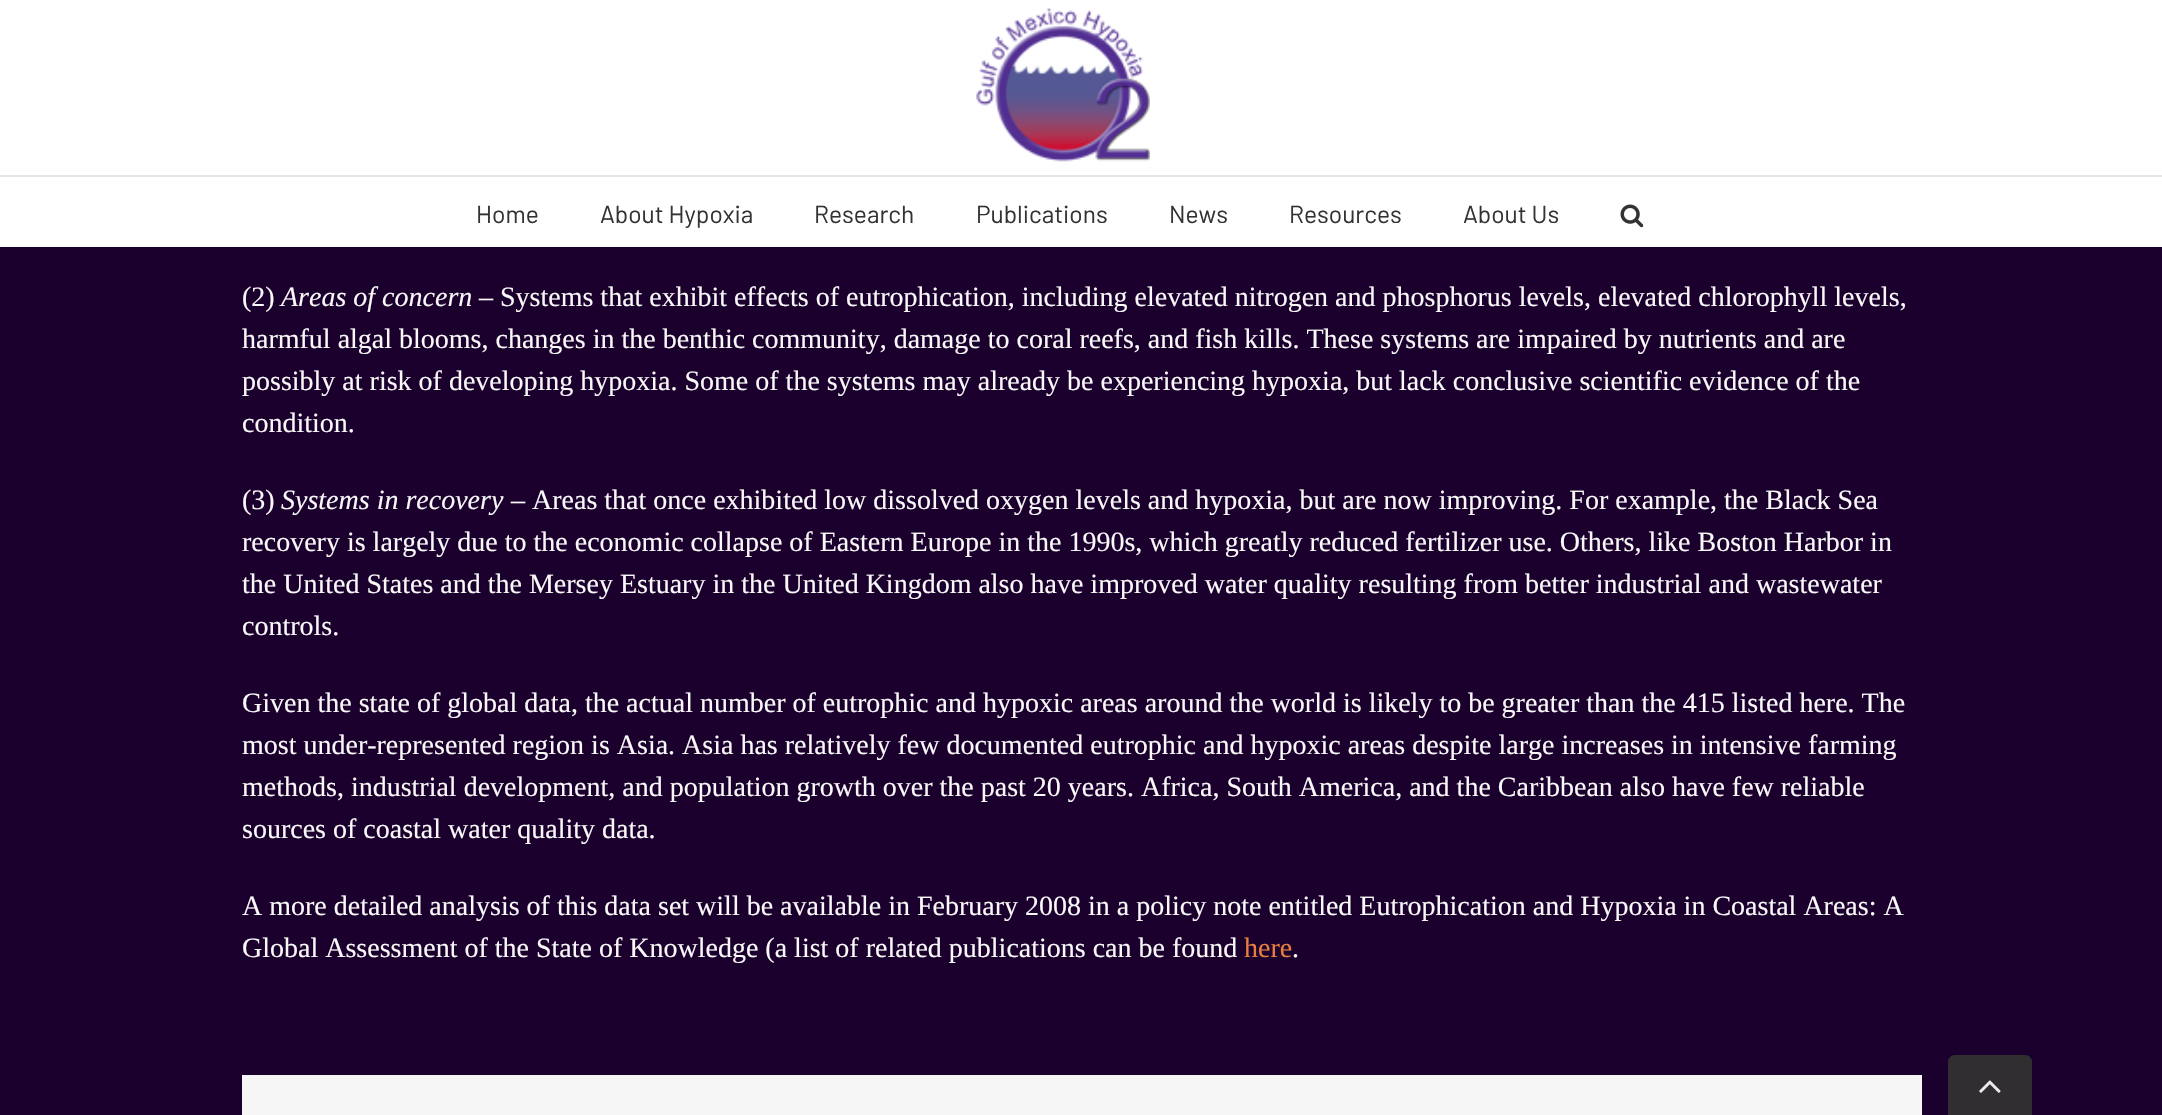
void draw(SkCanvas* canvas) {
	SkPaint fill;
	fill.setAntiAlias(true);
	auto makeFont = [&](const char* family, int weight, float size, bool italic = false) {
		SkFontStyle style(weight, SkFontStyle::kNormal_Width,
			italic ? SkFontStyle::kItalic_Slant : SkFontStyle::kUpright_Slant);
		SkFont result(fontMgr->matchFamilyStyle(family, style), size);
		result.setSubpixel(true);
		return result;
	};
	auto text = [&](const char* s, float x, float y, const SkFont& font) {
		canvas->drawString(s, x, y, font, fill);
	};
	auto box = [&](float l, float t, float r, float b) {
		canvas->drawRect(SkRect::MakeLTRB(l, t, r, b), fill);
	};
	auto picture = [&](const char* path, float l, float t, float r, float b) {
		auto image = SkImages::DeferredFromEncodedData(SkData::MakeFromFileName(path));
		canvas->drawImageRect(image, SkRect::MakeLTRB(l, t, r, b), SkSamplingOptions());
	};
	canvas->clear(0xFF1B002D);
	fill.setColor(0xFFFFFFFF);
	box(0, 0, 2162, 175);
	fill.setColor(0xFFE5E5E5);
	box(0, 175, 2162, 177);
	picture("image0.png", 976, 8, 1150, 162);
	fill.setColor(0xFFFFFFFF);
	box(0, 177, 2162, 247);
	picture("image1.png", 1620, 204, 1644, 228);
	fill.setColor(0xFFF6F6F6);
	box(242, 1075, 1922, 1115);
	fill.setColor(0xFF312E32);
	canvas->drawPath(SkPathBuilder().moveTo(1955, 1055).lineTo(2025, 1055).cubicTo(2029, 1055, 2032, 1058, 2032, 1062).lineTo(2032, 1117).lineTo(1948, 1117).lineTo(1948, 1062).cubicTo(1948, 1058, 1951, 1055, 1955, 1055).close().detach(), fill);
	picture("image2.png", 1979, 1080, 2001, 1093);
	auto font1 = makeFont("Barlow", 400, 24.5f);
	fill.setColor(0xFF333333);
	text("Home", 476, 223, font1);
	text("About Hypoxia", 600, 223, font1);
	text("Research", 814, 223, font1);
	text("Publications", 976, 223, font1);
	text("News", 1169, 223, font1);
	text("Resources", 1289, 223, font1);
	text("About Us", 1463, 223, font1);
	auto font2 = makeFont("Liberation Serif", 400, 28);
	fill.setColor(0xFFF9F9F9);
	text("(2)", 242, 306, font2);
	auto font3 = makeFont("Liberation Serif", 400, 28, true);
	text("Areas of concern", 281, 306, font3);
	text("– Systems that exhibit effects of eutrophication, including elevated nitrogen and phosphorus levels, elevated chlorophyll levels,", 479, 306, font2);
	text("harmful algal blooms, changes in the benthic community, damage to coral reefs, and fish kills. These systems are impaired by nutrients and are", 242, 348, font2);
	text("possibly at risk of developing hypoxia. Some of the systems may already be experiencing hypoxia, but lack conclusive scientific evidence of the", 242, 390, font2);
	text("condition.", 242, 432, font2);
	text("(3)", 242, 509, font2);
	text("Systems in recovery", 281, 509, font3);
	text("– Areas that once exhibited low dissolved oxygen levels and hypoxia, but are now improving. For example, the Black Sea", 511, 509, font2);
	text("recovery is largely due to the economic collapse of Eastern Europe in the 1990s, which greatly reduced fertilizer use. Others, like Boston Harbor in", 242, 551, font2);
	text("the United States and the Mersey Estuary in the United Kingdom also have improved water quality resulting from better industrial and wastewater", 242, 593, font2);
	text("controls.", 242, 635, font2);
	text("Given the state of global data, the actual number of eutrophic and hypoxic areas around the world is likely to be greater than the 415 listed here. The", 242, 712, font2);
	text("most under-represented region is Asia. Asia has relatively few documented eutrophic and hypoxic areas despite large increases in intensive farming", 242, 754, font2);
	text("methods, industrial development, and population growth over the past 20 years. Africa, South America, and the Caribbean also have few reliable", 242, 796, font2);
	text("sources of coastal water quality data.", 242, 838, font2);
	text("A more detailed analysis of this data set will be available in February 2008 in a policy note entitled Eutrophication and Hypoxia in Coastal Areas: A", 242, 915, font2);
	text("Global Assessment of the State of Knowledge (a list of related publications can be found", 242, 957, font2);
	fill.setColor(0xFFE87E40);
	text("here", 1244, 957, font2);
	fill.setColor(0xFFF9F9F9);
	text(".", 1292, 957, font2);
}
